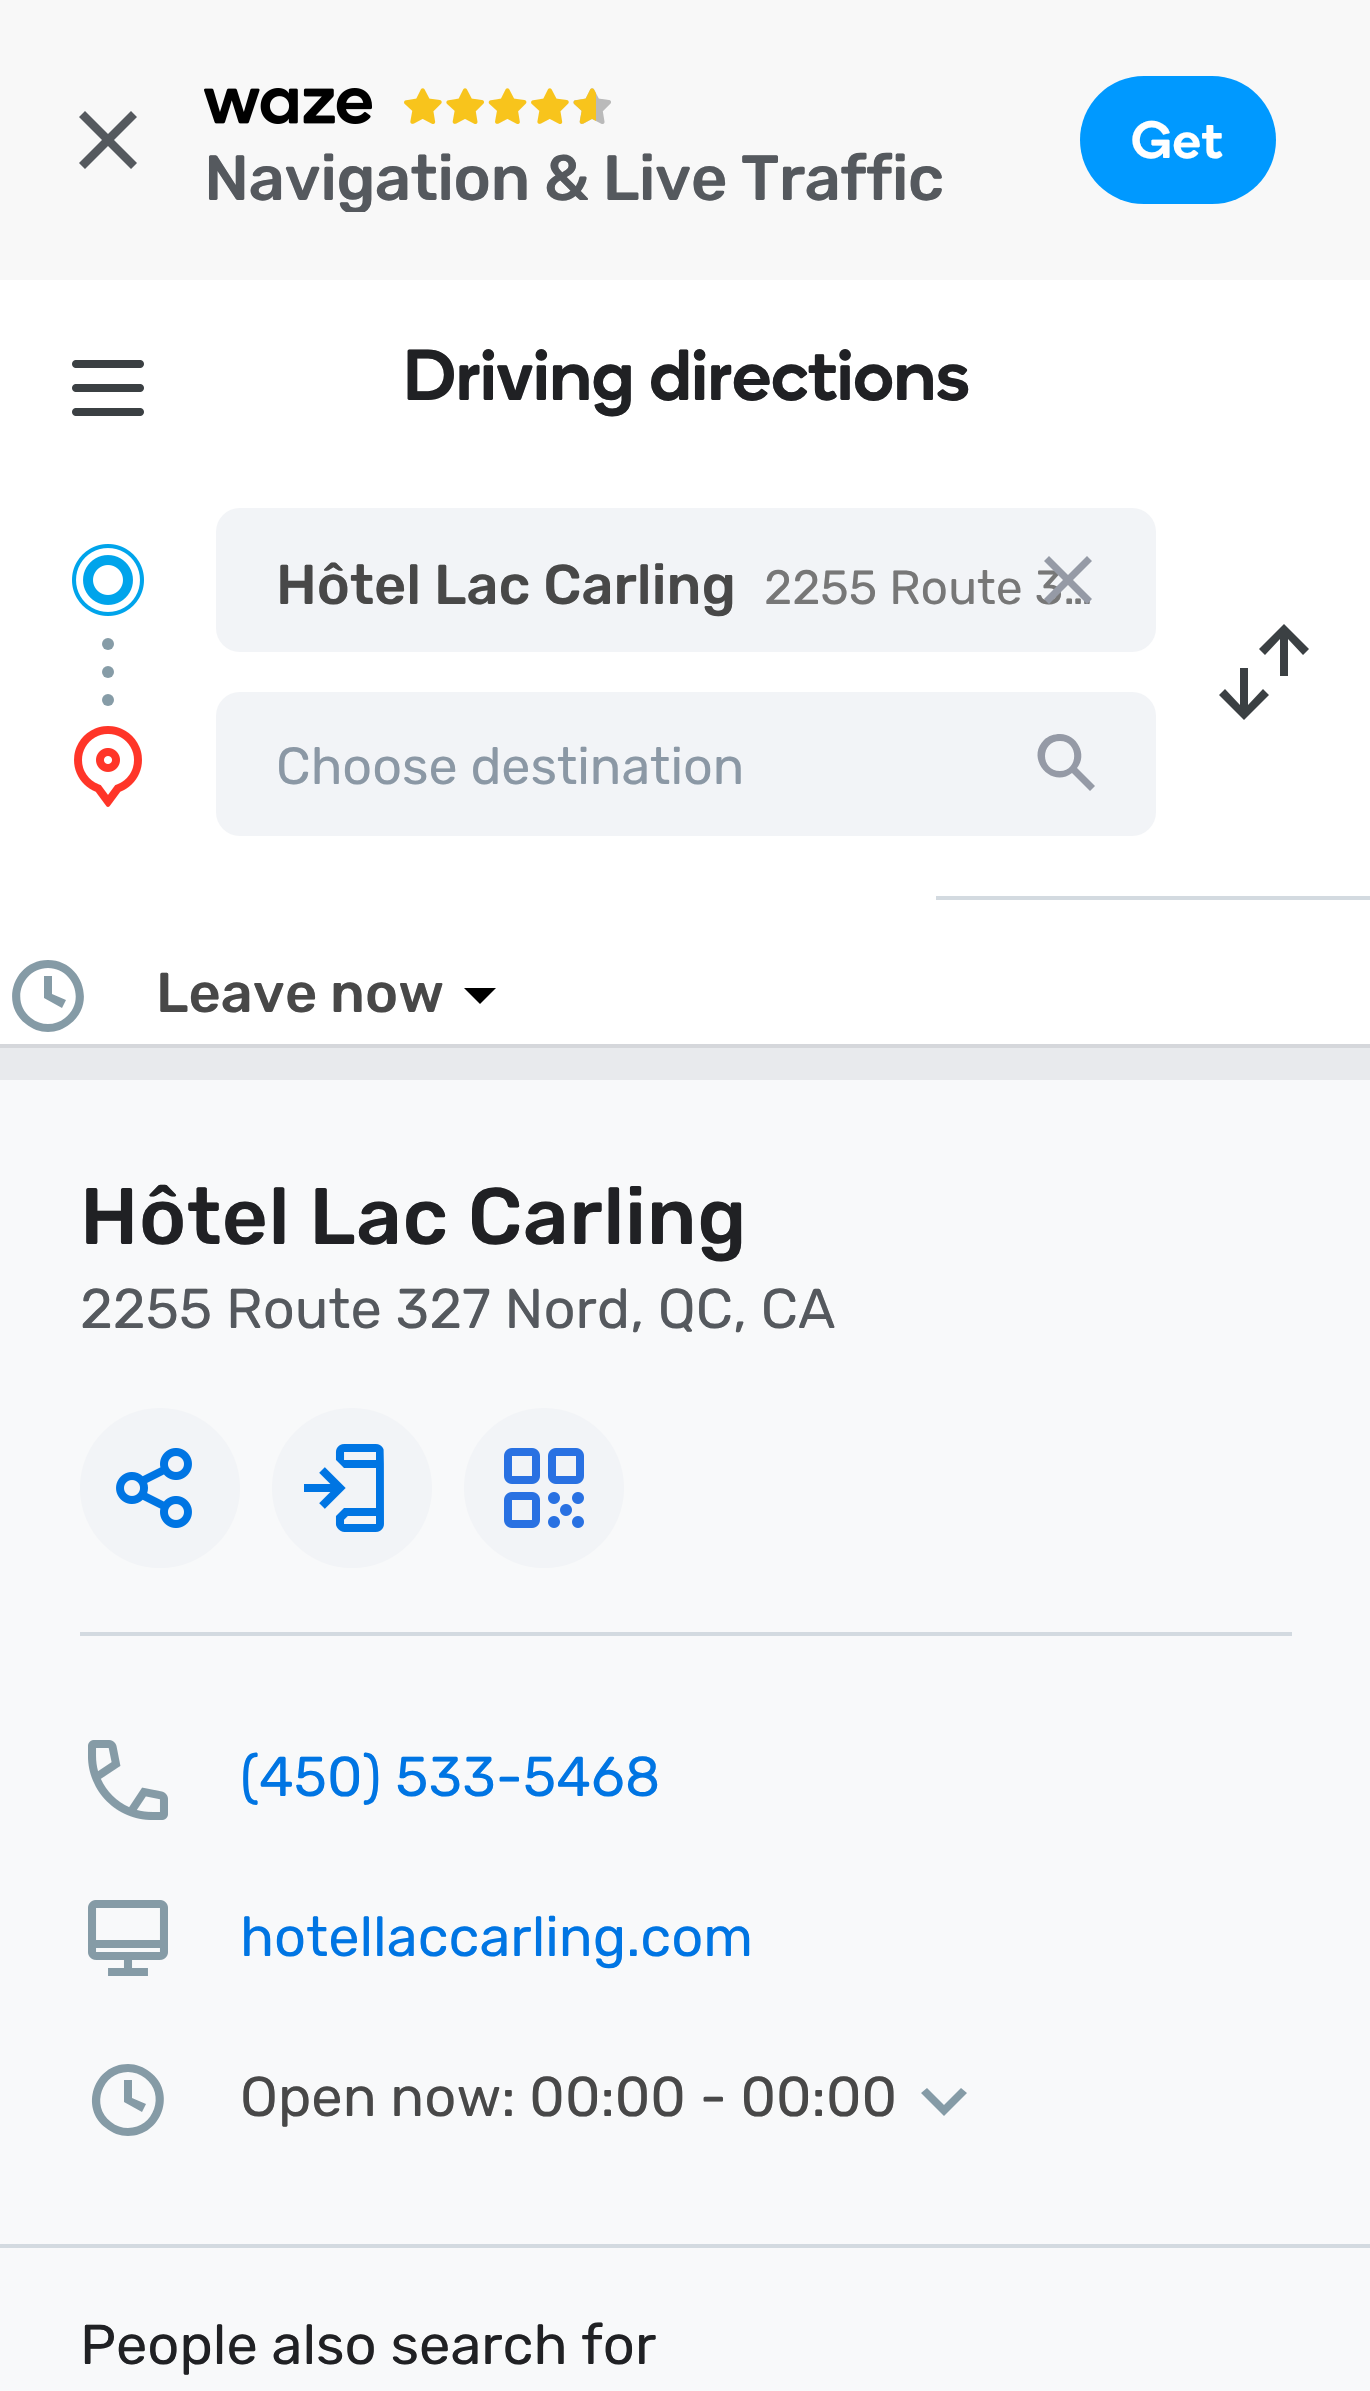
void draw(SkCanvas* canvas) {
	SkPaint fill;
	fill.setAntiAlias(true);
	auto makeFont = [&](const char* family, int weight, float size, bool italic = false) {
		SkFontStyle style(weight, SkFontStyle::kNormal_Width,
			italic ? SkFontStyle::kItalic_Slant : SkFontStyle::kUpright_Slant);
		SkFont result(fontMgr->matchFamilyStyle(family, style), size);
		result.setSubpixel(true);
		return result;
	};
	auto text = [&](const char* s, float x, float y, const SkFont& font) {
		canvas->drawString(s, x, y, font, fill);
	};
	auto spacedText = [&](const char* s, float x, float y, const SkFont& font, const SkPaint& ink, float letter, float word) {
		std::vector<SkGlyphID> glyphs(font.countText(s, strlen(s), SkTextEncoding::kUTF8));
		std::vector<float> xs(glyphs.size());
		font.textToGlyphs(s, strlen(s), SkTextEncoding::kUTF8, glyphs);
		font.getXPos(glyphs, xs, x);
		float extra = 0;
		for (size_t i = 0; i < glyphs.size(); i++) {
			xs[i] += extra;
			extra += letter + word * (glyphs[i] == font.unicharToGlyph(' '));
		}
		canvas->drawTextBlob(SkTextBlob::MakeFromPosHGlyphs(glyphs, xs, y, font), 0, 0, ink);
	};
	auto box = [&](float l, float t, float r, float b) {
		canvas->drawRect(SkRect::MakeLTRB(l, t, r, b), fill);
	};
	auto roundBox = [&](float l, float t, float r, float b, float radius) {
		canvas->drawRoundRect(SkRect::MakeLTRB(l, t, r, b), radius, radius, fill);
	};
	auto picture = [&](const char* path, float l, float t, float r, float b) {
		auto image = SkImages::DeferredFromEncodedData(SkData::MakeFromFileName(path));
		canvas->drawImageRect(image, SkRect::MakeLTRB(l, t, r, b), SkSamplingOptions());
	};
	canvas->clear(0xFFFFFFFF);
	fill.setColor(0xFFF8F8F8);
	box(0, 0, 1370, 280);
	fill.setColor(0xFF55595E);
	canvas->drawPath(SkPathBuilder().moveTo(102, 140).lineTo(79, 117).lineTo(85, 111).lineTo(108, 134).lineTo(131, 111).lineTo(137, 117).lineTo(114, 140).lineTo(137, 163).lineTo(131, 169).lineTo(108, 146).lineTo(85, 169).lineTo(79, 163).close().detach(), fill);
	fill.setColor(0xFF0099FF);
	roundBox(1080, 76, 1276, 204, 64);
	picture("image0.png", 204, 88, 372, 124);
	picture("image1.png", 404, 88, 611, 124);
	picture("image2.png", 72, 360, 144, 416);
	fill.setColor(0xFF869CA7);
	canvas->drawCircle(108, 644, 6, fill);
	canvas->drawCircle(108, 672, 6, fill);
	canvas->drawCircle(108, 700, 6, fill);
	picture("image3.png", 72, 544, 144, 616);
	fill.setColor(0xFFF2F4F7);
	roundBox(216, 508, 1156, 652, 24);
	fill.setColor(0xFF3B4043);
	canvas->drawPath(SkPathBuilder().moveTo(1288, 639).lineTo(1288, 676).lineTo(1280, 676).lineTo(1280, 639).lineTo(1265, 655).lineTo(1259, 649).lineTo(1284, 624).lineTo(1309, 649).lineTo(1303, 655).close().moveTo(1248, 705).lineTo(1263, 689).lineTo(1269, 695).lineTo(1244, 720).lineTo(1219, 695).lineTo(1225, 689).lineTo(1240, 705).lineTo(1240, 668).lineTo(1248, 668).close().detach(), fill);
	picture("image4.png", 74, 726, 142, 807);
	fill.setColor(0xFFF2F4F7);
	roundBox(216, 692, 1156, 836, 24);
	fill.setColor(0xFF959AA6);
	canvas->drawPath(SkPathBuilder().moveTo(1060, 734).cubicTo(1077, 734, 1088, 755, 1077, 768).lineTo(1095, 786).lineTo(1090, 791).lineTo(1072, 773).cubicTo(1052, 789, 1025, 759, 1044, 740).cubicTo(1048, 736, 1054, 734, 1060, 734).close().moveTo(1060, 741).cubicTo(1040, 741, 1040, 771, 1060, 771).cubicTo(1079, 771, 1079, 741, 1060, 741).close().detach(), fill);
	fill.setColor(0xFFD3DAE0);
	box(936, 896, 1370, 900);
	fill.setColor(0xFF859BA6);
	canvas->drawPath(SkPathBuilder().moveTo(48, 1024).cubicTo(54, 1024, 60, 1022, 65, 1018).cubicTo(86, 1002, 74, 968, 48, 968).cubicTo(22, 968, 10, 1002, 31, 1018).cubicTo(36, 1022, 42, 1024, 48, 1024).close().moveTo(48, 1032).cubicTo(40, 1032, 32, 1029, 26, 1024).cubicTo(-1, 1004, 14, 960, 48, 960).cubicTo(82, 960, 97, 1004, 70, 1024).cubicTo(64, 1029, 56, 1032, 48, 1032).close().moveTo(52, 994).lineTo(66, 1000).lineTo(62, 1008).lineTo(44, 998).lineTo(44, 976).lineTo(52, 976).close().detach(), fill);
	fill.setColor(0xFF000000);
	canvas->drawPath(SkPathBuilder().moveTo(464, 988).lineTo(496, 988).lineTo(480, 1004).close().detach(), fill);
	fill.setColor(0xFFD5D7DB);
	box(0, 1044, 1370, 1048);
	fill.setColor(0xFFF8F9FA);
	box(0, 1080, 1370, 2244);
	fill.setColor(0xFFE8EAED);
	box(0, 1048, 1370, 1080);
	fill.setColor(0xFFD3DAE0);
	box(80, 1632, 1292, 1636);
	fill.setColor(0xFFF2F4F7);
	canvas->drawCircle(160, 1488, 80, fill);
	picture("image5.png", 116, 1448, 192, 1528);
	canvas->drawCircle(352, 1488, 80, fill);
	picture("image6.png", 304, 1444, 384, 1532);
	canvas->drawCircle(544, 1488, 80, fill);
	picture("image7.png", 504, 1448, 584, 1528);
	picture("image8.png", 88, 1740, 168, 1820);
	picture("image9.png", 88, 1900, 168, 1976);
	fill.setColor(0xFF859BA6);
	canvas->drawPath(SkPathBuilder().moveTo(128, 2128).cubicTo(154, 2128, 166, 2094, 145, 2078).cubicTo(140, 2074, 134, 2072, 128, 2072).cubicTo(102, 2072, 90, 2106, 111, 2122).cubicTo(116, 2126, 122, 2128, 128, 2128).close().moveTo(128, 2136).cubicTo(120, 2136, 112, 2133, 106, 2128).cubicTo(79, 2108, 94, 2064, 128, 2064).cubicTo(136, 2064, 144, 2067, 150, 2072).cubicTo(177, 2092, 162, 2136, 128, 2136).close().moveTo(132, 2098).lineTo(146, 2104).lineTo(142, 2112).lineTo(124, 2102).lineTo(124, 2080).lineTo(132, 2080).close().detach(), fill);
	canvas->drawPath(SkPathBuilder().moveTo(961, 2088).lineTo(967, 2093).lineTo(944, 2116).lineTo(921, 2093).lineTo(927, 2088).lineTo(944, 2105).close().detach(), fill);
	fill.setColor(0xFFF8F9FA);
	box(0, 2248, 1370, 2391);
	fill.setColor(0xFFD3DAE0);
	box(0, 2244, 1370, 2248);
	auto font1 = makeFont("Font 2", 500, 52);
	fill.setColor(0xFFFFFFFF);
	spacedText("Get", 1131, 158, font1, fill, 1, 0);
	canvas->save();
	canvas->clipRect(SkRect::MakeLTRB(204, 148, 1032, 212));
	auto font2 = makeFont("Rubik", 500, 64);
	fill.setColor(0xFF55595E);
	spacedText("Navigation & Live Traffic", 204, 200, font2, fill, -0.8f, 0);
	canvas->restore();
	auto font3 = makeFont("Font", 500, 72);
	fill.setColor(0xFF202124);
	text("Driving directions", 403, 400, font3);
	auto font4 = makeFont("Rubik", 500, 56);
	fill.setColor(0xFF484848);
	text("Hôtel Lac Carling", 276, 604, font4);
	auto font5 = makeFont("Rubik", 400, 48);
	fill.setColor(0xFF777777);
	text("2255 Route 3…", 764, 604, font5);
	fill.setColor(0xFF959AA6);
	canvas->drawPath(SkPathBuilder().moveTo(1063, 580).lineTo(1044, 561).lineTo(1049, 556).lineTo(1068, 575).lineTo(1087, 556).lineTo(1092, 561).lineTo(1073, 580).lineTo(1092, 599).lineTo(1087, 604).lineTo(1068, 585).lineTo(1049, 604).lineTo(1044, 599).close().detach(), fill);
	auto font6 = makeFont("Rubik", 400, 52);
	fill.setColor(0xFF8B98A5);
	text("Choose destination", 276, 784, font6);
	fill.setColor(0xFF484848);
	text("Leave now", 156, 1012, font4);
	auto font7 = makeFont("Rubik", 500, 80);
	fill.setColor(0xFF202124);
	spacedText("Hôtel Lac Carling", 80, 1244, font7, fill, 0.6f, 0);
	auto font8 = makeFont("Rubik", 400, 56);
	fill.setColor(0xFF55595E);
	text("2255 Route 327 Nord, QC, CA", 80, 1328, font8);
	fill.setColor(0xFF0075E3);
	text("(450) 533-5468", 240, 1796, font8);
	text("hotellaccarling.com", 240, 1956, font8);
	fill.setColor(0xFF484848);
	text("Open now: 00:00 - 00:00", 240, 2116, font8);
	fill.setColor(0xFF202124);
	text("People also search for", 80, 2364, font8);
}
